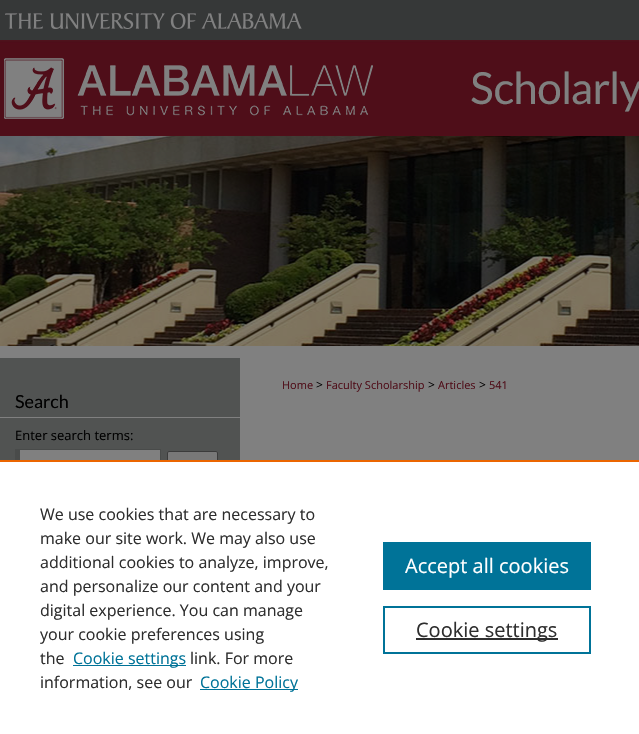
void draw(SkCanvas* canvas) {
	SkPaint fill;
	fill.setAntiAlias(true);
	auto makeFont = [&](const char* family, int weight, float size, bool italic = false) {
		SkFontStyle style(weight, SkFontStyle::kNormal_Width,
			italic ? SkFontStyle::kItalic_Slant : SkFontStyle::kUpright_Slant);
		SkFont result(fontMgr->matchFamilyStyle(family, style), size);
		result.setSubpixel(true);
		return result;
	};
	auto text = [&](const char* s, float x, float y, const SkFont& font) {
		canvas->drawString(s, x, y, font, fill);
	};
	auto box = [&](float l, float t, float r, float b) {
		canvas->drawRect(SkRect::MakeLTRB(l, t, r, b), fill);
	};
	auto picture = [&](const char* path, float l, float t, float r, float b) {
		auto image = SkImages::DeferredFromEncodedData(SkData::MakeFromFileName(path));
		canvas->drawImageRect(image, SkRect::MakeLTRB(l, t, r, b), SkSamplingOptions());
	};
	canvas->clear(0xFF808080);
	picture("image0.png", 0, 0, 639, 346);
	picture("image1.png", 5, 13, 302, 29);
	picture("image2.png", 0, 44, 639, 136);
	fill.setColor(0xFF515352);
	box(0, 358, 240, 460);
	fill.setColor(0xFF808080);
	box(0, 417, 240, 418);
	box(20, 450, 160, 460);
	fill.setColor(0xFF494B4A);
	box(15, 449, 161, 450);
	box(160, 449, 161, 460);
	box(15, 449, 20, 460);
	fill.setColor(0xFF787878);
	canvas->drawRoundRect(SkRect::MakeLTRB(167.5f, 451.5f, 217.5f, 468.5f), 1.5f, 1.5f, fill);
	fill.setStyle(SkPaint::kStroke_Style);
	fill.setStrokeWidth(1);
	fill.setColor(0xFF3B3B3B);
	canvas->drawRoundRect(SkRect::MakeLTRB(167.5f, 451.5f, 217.5f, 468.5f), 1.5f, 1.5f, fill);
	fill.setStyle(SkPaint::kFill_Style);
	fill.setColor(0xFFFFFFFF);
	box(0, 462, 639, 734);
	fill.setColor(0xFFEB6500);
	box(0, 460, 639, 462);
	fill.setColor(0xFF007398);
	box(73, 665, 186, 666);
	box(200, 689, 298, 690);
	box(383, 542, 591, 590);
	fill.setStyle(SkPaint::kStroke_Style);
	fill.setStrokeWidth(2);
	canvas->drawRect(SkRect::MakeLTRB(384, 607, 590, 653), fill);
	fill.setStyle(SkPaint::kFill_Style);
	fill.setColor(0xFF2E2E2E);
	box(416, 638, 558, 640);
	auto font1 = makeFont("Open Sans", 400, 11);
	fill.setColor(0xFF4F0E19);
	text("Home", 282, 389, font1);
	auto font2 = makeFont("Open Sans", 400, 12);
	fill.setColor(0xFF000000);
	text(">", 316, 389, font2);
	fill.setColor(0xFF4F0E19);
	text("Faculty Scholarship", 326, 389, font1);
	fill.setColor(0xFF000000);
	text(">", 428, 389, font2);
	fill.setColor(0xFF4F0E19);
	text("Articles", 438, 389, font1);
	fill.setColor(0xFF000000);
	text(">", 479, 389, font2);
	fill.setColor(0xFF4F0E19);
	text("541", 489, 389, font1);
	auto font3 = makeFont("Lato", 400, 18);
	fill.setColor(0xFF000000);
	text("Search", 15, 408, font3);
	auto font4 = makeFont("Open Sans", 400, 13);
	text("Enter search terms:", 15, 440, font4);
	auto font5 = makeFont("Open Sans", 400, 16);
	fill.setColor(0xFF2E2E2E);
	text("We use cookies that are necessary to", 40, 520, font5);
	text("make our site work. We may also use", 40, 544, font5);
	text("additional cookies to analyze, improve,", 40, 568, font5);
	text("and personalize our content and your", 40, 592, font5);
	text("digital experience. You can manage", 40, 616, font5);
	text("your cookie preferences using", 40, 640, font5);
	text("the", 40, 664, font5);
	fill.setColor(0xFF007398);
	text("Cookie settings", 73, 664, font5);
	fill.setColor(0xFF2E2E2E);
	text("link. For more", 190, 664, font5);
	text("information, see our", 40, 688, font5);
	fill.setColor(0xFF007398);
	text("Cookie Policy", 200, 688, font5);
	auto font6 = makeFont("Open Sans", 400, 20);
	fill.setColor(0xFFFFFFFF);
	text("Accept all cookies", 405, 573, font6);
	fill.setColor(0xFF2E2E2E);
	text("Cookie settings", 416, 637, font6);
}
